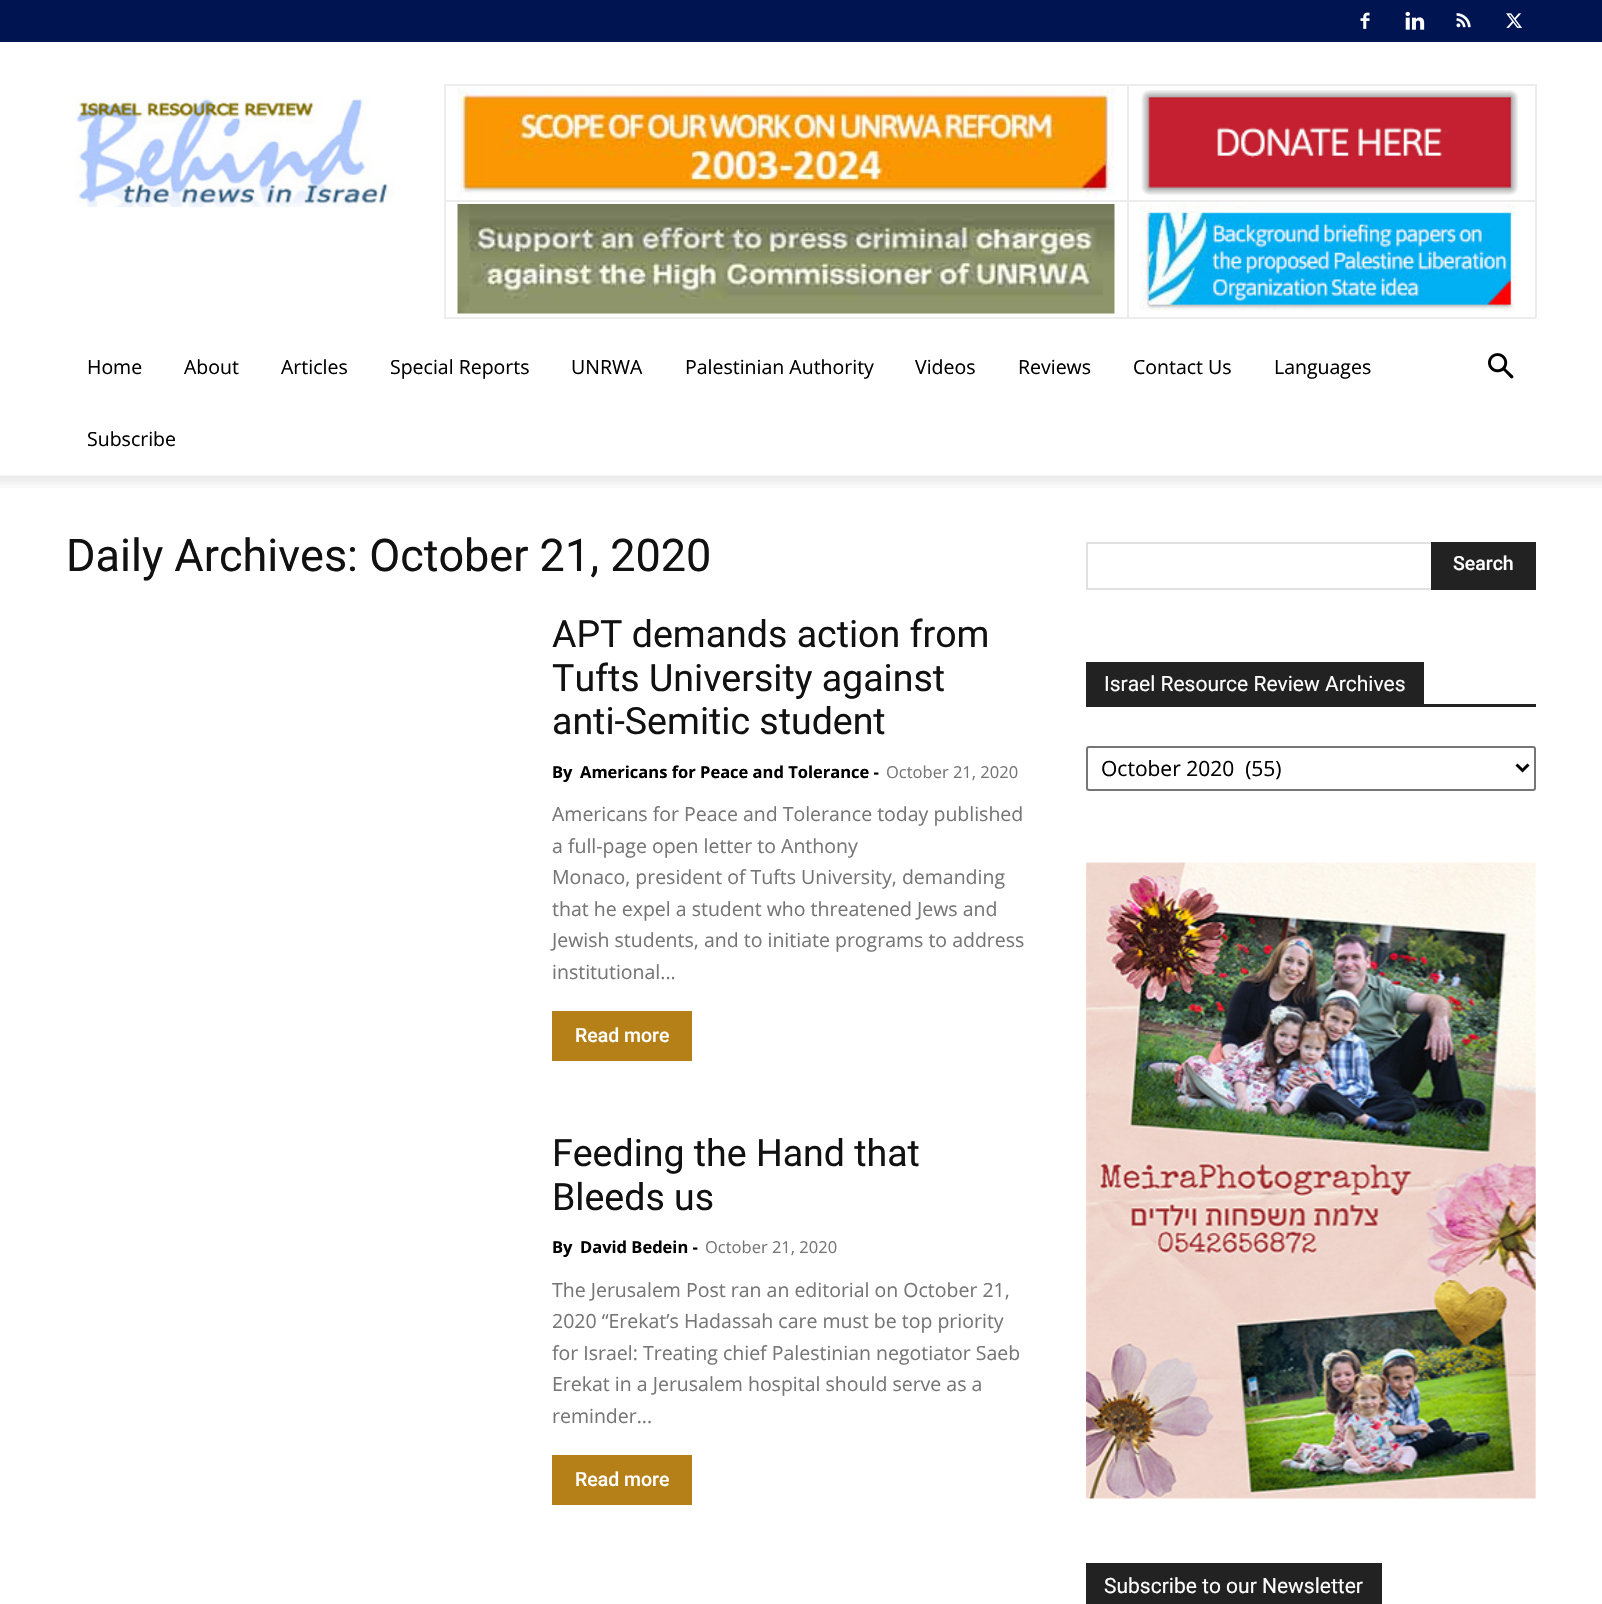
void draw(SkCanvas* canvas) {
	SkPaint fill;
	fill.setAntiAlias(true);
	auto makeFont = [&](const char* family, int weight, float size, bool italic = false) {
		SkFontStyle style(weight, SkFontStyle::kNormal_Width,
			italic ? SkFontStyle::kItalic_Slant : SkFontStyle::kUpright_Slant);
		SkFont result(fontMgr->matchFamilyStyle(family, style), size);
		result.setSubpixel(true);
		return result;
	};
	auto text = [&](const char* s, float x, float y, const SkFont& font) {
		canvas->drawString(s, x, y, font, fill);
	};
	auto box = [&](float l, float t, float r, float b) {
		canvas->drawRect(SkRect::MakeLTRB(l, t, r, b), fill);
	};
	auto picture = [&](const char* path, float l, float t, float r, float b) {
		auto image = SkImages::DeferredFromEncodedData(SkData::MakeFromFileName(path));
		canvas->drawImageRect(image, SkRect::MakeLTRB(l, t, r, b), SkSamplingOptions());
	};
	canvas->clear(0xFFFFFFFF);
	fill.setColor(0xFF001451);
	box(0, 0, 1602, 42);
	picture("image0.png", 1360, 12, 1370, 29);
	picture("image1.png", 1405, 11, 1425, 30);
	picture("image2.png", 1456, 13, 1471, 28);
	picture("image3.png", 1506, 13, 1522, 28);
	picture("image4.png", 75, 96, 394, 207);
	fill.setColor(0xFFEDEDED);
	box(1127, 84, 1536, 86);
	box(1127, 200, 1536, 202);
	box(1535, 200, 1537, 318);
	box(1127, 317, 1536, 319);
	box(1127, 200, 1129, 318);
	box(444, 200, 1128, 202);
	box(1127, 84, 1129, 201);
	box(444, 84, 1128, 86);
	box(444, 317, 1128, 319);
	box(444, 200, 446, 318);
	box(444, 84, 446, 201);
	picture("image5.png", 457, 88, 1115, 197);
	box(1535, 84, 1537, 201);
	picture("image6.png", 1141, 90, 1518, 195);
	picture("image7.png", 457, 204, 1115, 314);
	picture("image8.png", 1140, 204, 1516, 311);
	picture("image9.png", 1488, 353, 1514, 379);
	picture("image10.png", 0, 475, 1602, 488);
	fill.setColor(0xFFB58017);
	box(552, 1011, 692, 1061);
	box(552, 1455, 692, 1505);
	fill.setColor(0xFFE1E1E1);
	box(1086, 542, 1431, 544);
	box(1086, 588, 1431, 590);
	box(1086, 542, 1088, 590);
	fill.setColor(0xFF222222);
	box(1431, 542, 1536, 590);
	box(1086, 704, 1536, 707);
	box(1086, 662, 1424, 704);
	fill.setStyle(SkPaint::kStroke_Style);
	fill.setStrokeWidth(2);
	fill.setColor(0xFF767676);
	canvas->drawRoundRect(SkRect::MakeLTRB(1087, 747, 1535, 790), 2, 2, fill);
	fill.setStrokeWidth(3);
	fill.setColor(0xFF000000);
	canvas->drawPath(SkPathBuilder().moveTo(1516.5f, 764.5f).lineTo(1522.5f, 770.5f).lineTo(1528.5f, 764.5f).detach(), fill);
	picture("image11.png", 1086, 862, 1536, 1499);
	fill.setStyle(SkPaint::kFill_Style);
	fill.setColor(0xFF222222);
	box(1086, 1563, 1382, 1604);
	auto font1 = makeFont("Open Sans", 400, 19.5f);
	fill.setColor(0xFF000000);
	text("Home", 87, 374, font1);
	text("About", 184, 374, font1);
	text("Articles", 281, 374, font1);
	text("Special Reports", 390, 374, font1);
	text("UNRWA", 571, 374, font1);
	text("Palestinian Authority", 685, 374, font1);
	text("Videos", 915, 374, font1);
	text("Reviews", 1018, 374, font1);
	text("Contact Us", 1133, 374, font1);
	text("Languages", 1274, 374, font1);
	text("Subscribe", 87, 446, font1);
	auto font2 = makeFont("Roboto", 400, 45);
	fill.setColor(0xFF111111);
	text("Daily Archives: October 21, 2020", 66, 571, font2);
	auto font3 = makeFont("Roboto", 400, 37.5f);
	text("APT demands action from", 552, 647, font3);
	text("Tufts University against", 552, 691, font3);
	text("anti-Semitic student", 552, 734, font3);
	auto font4 = makeFont("Open Sans", 700, 16.5f);
	fill.setColor(0xFF000000);
	text("By", 552, 778, font4);
	text("Americans for Peace and Tolerance -", 580, 778, font4);
	auto font5 = makeFont("Open Sans", 400, 16.5f);
	fill.setColor(0xFF767676);
	text("October 21, 2020", 886, 778, font5);
	text("Americans for Peace and Tolerance today published", 552, 821, font1);
	text("a full-page open letter to Anthony", 552, 853, font1);
	text("Monaco, president of Tufts University, demanding", 552, 884, font1);
	text("that he expel a student who threatened Jews and", 552, 916, font1);
	text("Jewish students, and to initiate programs to address", 552, 947, font1);
	text("institutional...", 552, 979, font1);
	auto font6 = makeFont("Roboto", 500, 19.5f);
	fill.setColor(0xFFFFFFFF);
	text("Read more", 575, 1042, font6);
	fill.setColor(0xFF111111);
	text("Feeding the Hand that", 552, 1166, font3);
	text("Bleeds us", 552, 1210, font3);
	fill.setColor(0xFF000000);
	text("By", 552, 1253, font4);
	text("David Bedein -", 580, 1253, font4);
	fill.setColor(0xFF767676);
	text("October 21, 2020", 705, 1253, font5);
	text("The Jerusalem Post ran an editorial on October 21,", 552, 1297, font1);
	text("2020 “Erekat’s Hadassah care must be top priority", 552, 1328, font1);
	text("for Israel: Treating chief Palestinian negotiator Saeb", 552, 1360, font1);
	text("Erekat in a Jerusalem hospital should serve as a", 552, 1391, font1);
	text("reminder...", 552, 1423, font1);
	fill.setColor(0xFFFFFFFF);
	text("Read more", 575, 1486, font6);
	text("Search", 1453, 570, font6);
	auto font7 = makeFont("Roboto", 400, 21);
	text("Israel Resource Review Archives", 1104, 691, font7);
	auto font8 = makeFont("Open Sans", 400, 21);
	fill.setColor(0xFF000000);
	text("October 2020  (55)", 1101, 776, font8);
	fill.setColor(0xFFFFFFFF);
	text("Subscribe to our Newsletter", 1104, 1593, font7);
}
